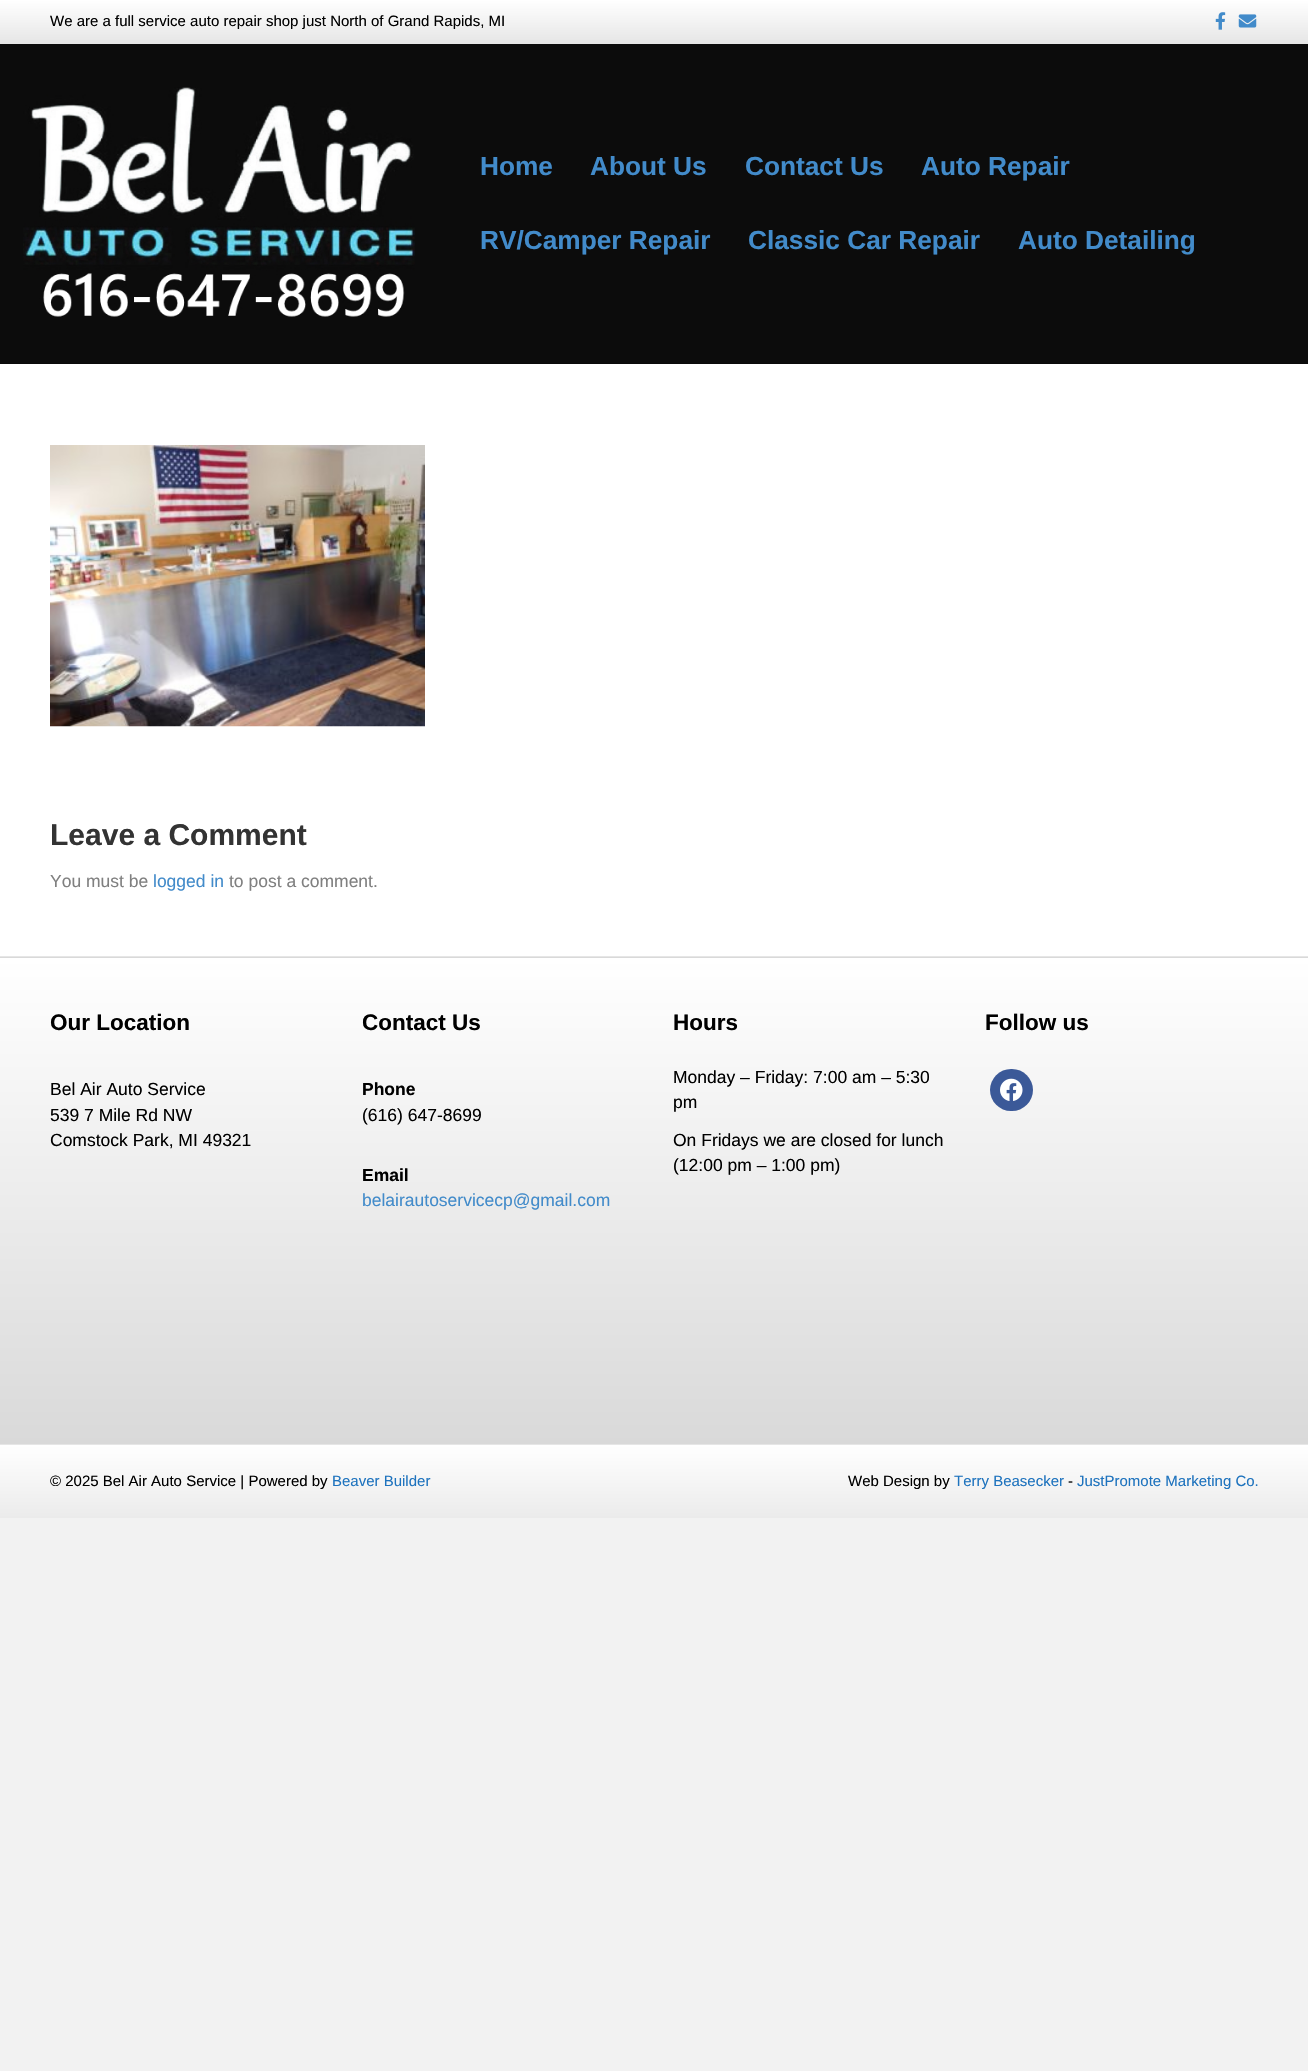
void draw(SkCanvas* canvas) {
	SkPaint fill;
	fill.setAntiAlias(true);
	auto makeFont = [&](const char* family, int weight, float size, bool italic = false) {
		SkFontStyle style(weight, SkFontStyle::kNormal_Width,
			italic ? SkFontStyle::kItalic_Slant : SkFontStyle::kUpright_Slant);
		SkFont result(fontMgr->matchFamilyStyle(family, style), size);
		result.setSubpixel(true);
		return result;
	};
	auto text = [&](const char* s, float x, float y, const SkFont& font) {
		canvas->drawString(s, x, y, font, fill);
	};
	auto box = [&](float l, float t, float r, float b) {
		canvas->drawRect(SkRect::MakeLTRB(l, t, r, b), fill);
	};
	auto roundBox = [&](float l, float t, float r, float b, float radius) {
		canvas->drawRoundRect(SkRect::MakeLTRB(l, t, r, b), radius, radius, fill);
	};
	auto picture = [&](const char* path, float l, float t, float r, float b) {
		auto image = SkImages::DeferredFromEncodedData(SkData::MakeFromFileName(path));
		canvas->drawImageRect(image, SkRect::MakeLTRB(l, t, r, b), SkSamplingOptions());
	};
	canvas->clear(0xFFF2F2F2);
	{
		const SkColor colors[] = {0xFFFFFFFF, 0xFFE6E6E6};
		const float stops[] = {0, 1};
		const SkPoint ends[] = {{654, 0}, {654, 43}};
		fill.setShader(SkGradientShader::MakeLinear(ends, colors, stops, 2, SkTileMode::kClamp));
		fill.setAlpha(255);
	}
	box(0, 0, 1308, 43);
	fill.setShader(nullptr);
	fill.setColor(0xFFE6E6E6);
	box(0, 43, 1308, 44);
	picture("image0.png", 1215, 12, 1226, 30);
	picture("image1.png", 1238, 14, 1257, 28);
	fill.setColor(0xFF0C0C0C);
	box(0, 44, 1308, 363);
	fill.setColor(0xFF0A0A0A);
	box(0, 363, 1308, 364);
	picture("image2.png", 23, 87, 415, 317);
	fill.setColor(0xFFFFFFFF);
	box(0, 364, 1308, 956);
	picture("image3.png", 50, 445, 425, 727);
	{
		const SkColor colors[] = {0xFFFFFFFF, 0xFFD9D9D9};
		const float stops[] = {0, 1};
		const SkPoint ends[] = {{654, 471}, {654, 958}};
		fill.setShader(SkGradientShader::MakeLinear(ends, colors, stops, 2, SkTileMode::kClamp));
		fill.setAlpha(255);
	}
	box(0, 957, 1308, 958);
	{
		const SkColor colors[] = {0xFFFFFFFF, 0xFFD9D9D9};
		const float stops[] = {0, 1};
		const SkPoint ends[] = {{654, 958}, {654, 1444}};
		fill.setShader(SkGradientShader::MakeLinear(ends, colors, stops, 2, SkTileMode::kClamp));
		fill.setAlpha(255);
	}
	box(0, 958, 1308, 1444);
	fill.setShader(nullptr);
	fill.setColor(0xFFE6E6E6);
	box(0, 956, 1308, 957);
	fill.setColor(0xFF3B5998);
	roundBox(990, 1069, 1033, 1111, 21);
	picture("image4.png", 1000, 1078, 1023, 1101);
	{
		const SkColor colors[] = {0xFFFFFFFF, 0xFFEBEBEB};
		const float stops[] = {0, 1};
		const SkPoint ends[] = {{654, 1445}, {654, 1518}};
		fill.setShader(SkGradientShader::MakeLinear(ends, colors, stops, 2, SkTileMode::kClamp));
		fill.setAlpha(255);
	}
	box(0, 1445, 1308, 1518);
	fill.setShader(nullptr);
	fill.setColor(0xFFE6E6E6);
	box(0, 1444, 1308, 1445);
	auto font1 = makeFont("Liberation Sans", 400, 15);
	fill.setColor(0xFF000000);
	text("We are a full service auto repair shop just North of Grand Rapids, MI", 50, 26, font1);
	auto font2 = makeFont("Liberation Sans", 700, 26.25f);
	fill.setColor(0xFF428BCA);
	text("Home", 480, 175, font2);
	text("About Us", 590, 175, font2);
	text("Contact Us", 745, 175, font2);
	text("Auto Repair", 921, 175, font2);
	text("RV/Camper Repair", 480, 249, font2);
	text("Classic Car Repair", 748, 249, font2);
	text("Auto Detailing", 1018, 249, font2);
	auto font3 = makeFont("Liberation Sans", 700, 30);
	fill.setColor(0xFF333333);
	text("Leave a Comment", 50, 845, font3);
	auto font4 = makeFont("Liberation Sans", 400, 17.5f);
	fill.setColor(0xFF808080);
	text("You must be", 50, 887, font4);
	fill.setColor(0xFF428BCA);
	text("logged in", 153, 887, font4);
	fill.setColor(0xFF808080);
	text("to post a comment.", 229, 887, font4);
	auto font5 = makeFont("Liberation Sans", 700, 22.5f);
	fill.setColor(0xFF000000);
	text("Our Location", 50, 1030, font5);
	text("Bel Air Auto Service", 50, 1095, font4);
	text("539 7 Mile Rd NW", 50, 1121, font4);
	text("Comstock Park, MI 49321", 50, 1146, font4);
	text("Contact Us", 362, 1030, font5);
	auto font6 = makeFont("Liberation Sans", 700, 17.5f);
	text("Phone", 362, 1095, font6);
	text("(616) 647-8699", 362, 1121, font4);
	text("Email", 362, 1181, font6);
	fill.setColor(0xFF428BCA);
	text("belairautoservicecp@gmail.com", 362, 1206, font4);
	fill.setColor(0xFF000000);
	text("Hours", 673, 1030, font5);
	text("Monday – Friday: 7:00 am – 5:30", 673, 1083, font4);
	text("pm", 673, 1108, font4);
	text("On Fridays we are closed for lunch", 673, 1146, font4);
	text("(12:00 pm – 1:00 pm)", 673, 1171, font4);
	text("Follow us", 985, 1030, font5);
	text("© 2025 Bel Air Auto Service | Powered by", 50, 1486, font1);
	fill.setColor(0xFF1E73BE);
	text("Beaver Builder", 332, 1486, font1);
	fill.setColor(0xFF000000);
	text("Web Design by", 848, 1486, font1);
	fill.setColor(0xFF1E73BE);
	text("Terry Beasecker", 954, 1486, font1);
	fill.setColor(0xFF000000);
	text("-", 1068, 1486, font1);
	fill.setColor(0xFF1E73BE);
	text("JustPromote Marketing Co.", 1077, 1486, font1);
}
